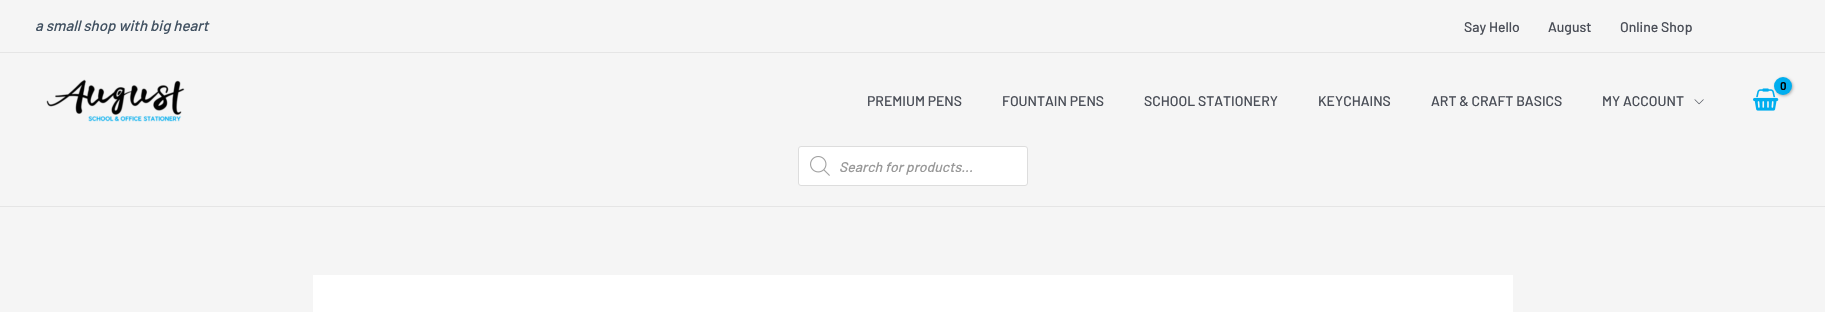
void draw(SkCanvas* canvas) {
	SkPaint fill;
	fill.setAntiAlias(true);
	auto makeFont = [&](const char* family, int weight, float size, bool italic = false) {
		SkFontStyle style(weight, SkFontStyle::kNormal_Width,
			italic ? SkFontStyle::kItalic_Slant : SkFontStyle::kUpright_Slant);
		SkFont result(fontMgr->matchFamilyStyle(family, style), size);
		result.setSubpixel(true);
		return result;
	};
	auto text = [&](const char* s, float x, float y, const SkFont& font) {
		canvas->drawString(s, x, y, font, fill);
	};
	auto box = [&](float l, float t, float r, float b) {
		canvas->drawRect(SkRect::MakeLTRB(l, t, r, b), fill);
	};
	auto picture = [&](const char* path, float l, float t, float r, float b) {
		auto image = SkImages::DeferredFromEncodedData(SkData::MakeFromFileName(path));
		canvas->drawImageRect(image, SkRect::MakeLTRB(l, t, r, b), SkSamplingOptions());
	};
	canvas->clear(0xFFF5F5F5);
	fill.setColor(0xFFE5E5E5);
	box(0, 52, 1825, 53);
	picture("image0.png", 46, 79, 185, 122);
	picture("image1.png", 1753, 88, 1779, 111);
	fill.setColor(0x4D000000);
	fill.setMaskFilter(SkMaskFilter::MakeBlur(kNormal_SkBlurStyle, 1.5f));
	canvas->drawRoundRect(SkRect::MakeLTRB(1775, 78, 1793, 96), 9, 9, fill);
	fill.setMaskFilter(nullptr);
	fill.setColor(0xFF00AEEF);
	canvas->drawCircle(1783, 86, 9, fill);
	picture("image2.png", 1694, 99, 1704, 105);
	fill.setColor(0xFFE5E5E5);
	box(0, 206, 1825, 207);
	fill.setColor(0xFFFFFFFF);
	canvas->drawRoundRect(SkRect::MakeLTRB(798.5f, 146.5f, 1027.5f, 185.5f), 2.5f, 2.5f, fill);
	fill.setStyle(SkPaint::kStroke_Style);
	fill.setStrokeWidth(1);
	fill.setColor(0xFFDDDDDD);
	canvas->drawRoundRect(SkRect::MakeLTRB(798.5f, 146.5f, 1027.5f, 185.5f), 2.5f, 2.5f, fill);
	picture("image3.png", 810, 156, 830, 176);
	fill.setStyle(SkPaint::kFill_Style);
	fill.setColor(0xFFFFFFFF);
	box(313, 275, 1513, 312);
	auto font1 = makeFont("Barlow", 500, 15, true);
	fill.setColor(0xFF415161);
	text("a small shop with big heart", 35, 31, font1);
	auto font2 = makeFont("Barlow", 500, 14);
	fill.setColor(0xFF4B4F58);
	text("Say Hello", 1464, 32, font2);
	text("August", 1548, 32, font2);
	text("Online Shop", 1620, 32, font2);
	auto font3 = makeFont("Barlow", 700, 11);
	fill.setColor(0xFF000000);
	text("0", 1780, 90, font3);
	fill.setColor(0xFF4B4F58);
	text("PREMIUM PENS", 867, 106, font2);
	text("FOUNTAIN PENS", 1002, 106, font2);
	text("SCHOOL STATIONERY", 1144, 106, font2);
	text("KEYCHAINS", 1318, 106, font2);
	text("ART & CRAFT BASICS", 1431, 106, font2);
	text("MY ACCOUNT", 1602, 106, font2);
	auto font4 = makeFont("Barlow", 500, 14, true);
	fill.setColor(0xFF999999);
	text("Search for products...", 839, 172, font4);
}
